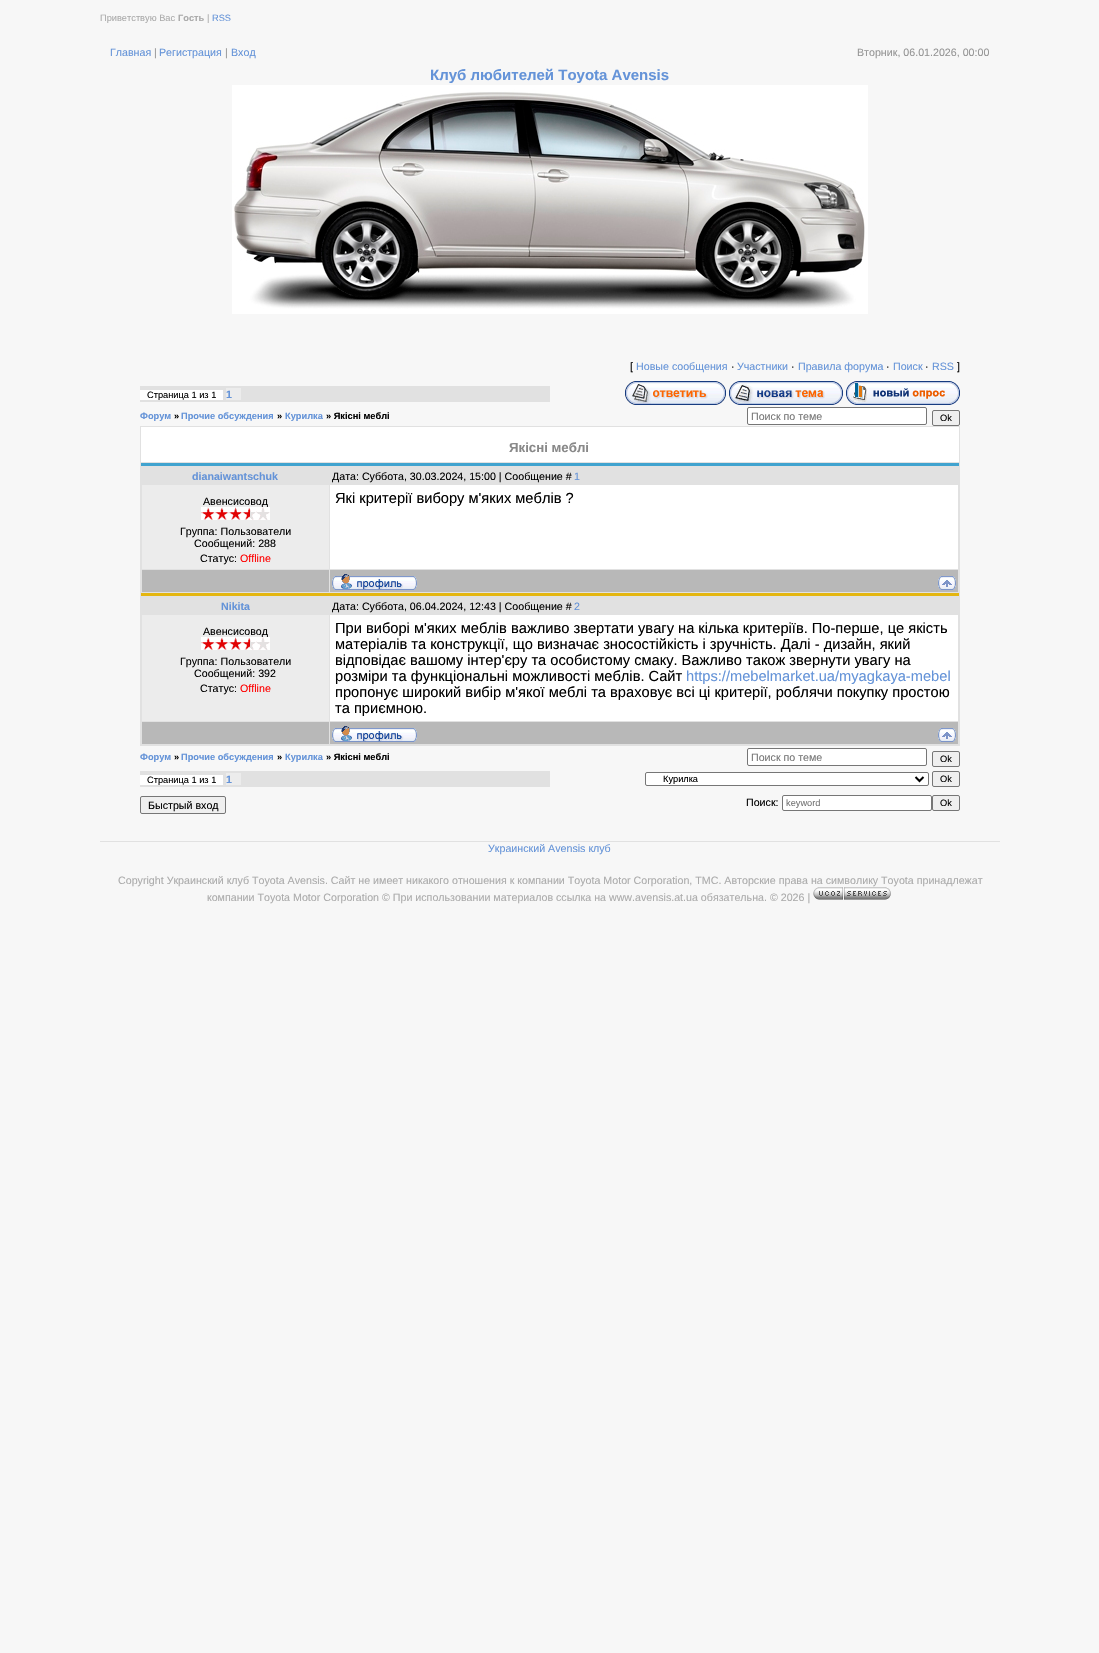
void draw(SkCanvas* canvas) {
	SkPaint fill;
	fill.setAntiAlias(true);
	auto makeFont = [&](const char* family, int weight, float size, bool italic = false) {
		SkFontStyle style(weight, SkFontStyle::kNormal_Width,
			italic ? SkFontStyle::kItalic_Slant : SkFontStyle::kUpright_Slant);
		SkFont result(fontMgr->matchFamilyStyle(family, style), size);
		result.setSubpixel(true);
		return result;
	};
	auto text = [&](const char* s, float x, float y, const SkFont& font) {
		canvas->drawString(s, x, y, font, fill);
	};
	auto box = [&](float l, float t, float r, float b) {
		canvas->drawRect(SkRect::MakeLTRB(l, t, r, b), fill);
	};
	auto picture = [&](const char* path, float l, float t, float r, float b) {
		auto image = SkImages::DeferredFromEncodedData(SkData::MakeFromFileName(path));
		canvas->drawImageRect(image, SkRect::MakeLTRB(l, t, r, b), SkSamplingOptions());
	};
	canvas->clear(0xFFF7F7F7);
	picture("image0.png", 232, 85, 868, 314);
	fill.setColor(0xFFE1E1E1);
	box(100, 841, 1000, 842);
	box(140, 386, 550, 402);
	fill.setColor(0xFFFFFFFF);
	box(140, 390, 223, 400);
	fill.setColor(0xFFECECEC);
	box(226, 388, 241, 400);
	picture("image1.png", 625, 381, 726, 405);
	picture("image2.png", 729, 381, 843, 405);
	picture("image3.png", 846, 381, 960, 405);
	fill.setColor(0xFFFFFFFF);
	canvas->drawRoundRect(SkRect::MakeLTRB(747.5f, 407.5f, 926.5f, 424.5f), 1.5f, 1.5f, fill);
	fill.setStyle(SkPaint::kStroke_Style);
	fill.setStrokeWidth(1);
	fill.setColor(0xFF767676);
	canvas->drawRoundRect(SkRect::MakeLTRB(747.5f, 407.5f, 926.5f, 424.5f), 1.5f, 1.5f, fill);
	fill.setStyle(SkPaint::kFill_Style);
	fill.setColor(0xFFEFEFEF);
	canvas->drawRoundRect(SkRect::MakeLTRB(932.5f, 410.5f, 959.5f, 425.5f), 1.5f, 1.5f, fill);
	fill.setStyle(SkPaint::kStroke_Style);
	fill.setColor(0xFF767676);
	canvas->drawRoundRect(SkRect::MakeLTRB(932.5f, 410.5f, 959.5f, 425.5f), 1.5f, 1.5f, fill);
	fill.setStyle(SkPaint::kFill_Style);
	fill.setColor(0xFFE1E1E1);
	box(140, 426, 960, 746);
	fill.setColor(0xFFFFFFFF);
	box(141, 427, 959, 462);
	fill.setColor(0xFF40A3CF);
	box(141, 463, 959, 466);
	fill.setColor(0xFFE4B610);
	box(141, 593, 959, 596);
	fill.setColor(0xFFECECEC);
	box(142, 485, 329, 569);
	fill.setColor(0xFFFFFFFF);
	box(330, 485, 958, 569);
	fill.setColor(0xFFB8B8B8);
	box(142, 570, 329, 592);
	box(330, 570, 958, 592);
	picture("image5.png", 332, 574, 417, 590);
	picture("image6.png", 938, 576, 956, 590);
	fill.setColor(0xFFECECEC);
	box(142, 615, 329, 721);
	fill.setColor(0xFFFFFFFF);
	box(330, 615, 958, 721);
	fill.setColor(0xFFB8B8B8);
	box(142, 722, 329, 744);
	box(330, 722, 958, 744);
	picture("image5.png", 332, 726, 417, 742);
	picture("image6.png", 938, 728, 956, 742);
	fill.setColor(0xFFFFFFFF);
	canvas->drawRoundRect(SkRect::MakeLTRB(747.5f, 748.5f, 926.5f, 765.5f), 1.5f, 1.5f, fill);
	fill.setStyle(SkPaint::kStroke_Style);
	fill.setColor(0xFF767676);
	canvas->drawRoundRect(SkRect::MakeLTRB(747.5f, 748.5f, 926.5f, 765.5f), 1.5f, 1.5f, fill);
	fill.setStyle(SkPaint::kFill_Style);
	fill.setColor(0xFFEFEFEF);
	canvas->drawRoundRect(SkRect::MakeLTRB(932.5f, 751.5f, 959.5f, 766.5f), 1.5f, 1.5f, fill);
	fill.setStyle(SkPaint::kStroke_Style);
	fill.setColor(0xFF767676);
	canvas->drawRoundRect(SkRect::MakeLTRB(932.5f, 751.5f, 959.5f, 766.5f), 1.5f, 1.5f, fill);
	fill.setStyle(SkPaint::kFill_Style);
	fill.setColor(0xFFE1E1E1);
	box(140, 771, 550, 787);
	fill.setColor(0xFFFFFFFF);
	box(140, 775, 223, 785);
	fill.setColor(0xFFECECEC);
	box(226, 773, 241, 785);
	fill.setColor(0xFFFFFFFF);
	canvas->drawRoundRect(SkRect::MakeLTRB(645.5f, 772.5f, 928.5f, 785.5f), 1.5f, 1.5f, fill);
	fill.setStyle(SkPaint::kStroke_Style);
	fill.setColor(0xFF767676);
	canvas->drawRoundRect(SkRect::MakeLTRB(645.5f, 772.5f, 928.5f, 785.5f), 1.5f, 1.5f, fill);
	fill.setStrokeWidth(2);
	fill.setColor(0xFF000000);
	canvas->drawPath(SkPathBuilder().moveTo(915.5f, 777).lineTo(919.5f, 781).lineTo(923.5f, 777).detach(), fill);
	fill.setStyle(SkPaint::kFill_Style);
	fill.setColor(0xFFEFEFEF);
	canvas->drawRoundRect(SkRect::MakeLTRB(932.5f, 771.5f, 959.5f, 786.5f), 1.5f, 1.5f, fill);
	fill.setStyle(SkPaint::kStroke_Style);
	fill.setStrokeWidth(1);
	fill.setColor(0xFF767676);
	canvas->drawRoundRect(SkRect::MakeLTRB(932.5f, 771.5f, 959.5f, 786.5f), 1.5f, 1.5f, fill);
	fill.setStyle(SkPaint::kFill_Style);
	fill.setColor(0xFFEFEFEF);
	canvas->drawRoundRect(SkRect::MakeLTRB(140.5f, 796.5f, 225.5f, 813.5f), 1.5f, 1.5f, fill);
	fill.setStyle(SkPaint::kStroke_Style);
	fill.setColor(0xFF767676);
	canvas->drawRoundRect(SkRect::MakeLTRB(140.5f, 796.5f, 225.5f, 813.5f), 1.5f, 1.5f, fill);
	fill.setStyle(SkPaint::kFill_Style);
	fill.setColor(0xFFFFFFFF);
	canvas->drawRoundRect(SkRect::MakeLTRB(782.5f, 795.5f, 931.5f, 810.5f), 1.5f, 1.5f, fill);
	fill.setStyle(SkPaint::kStroke_Style);
	fill.setColor(0xFF767676);
	canvas->drawRoundRect(SkRect::MakeLTRB(782.5f, 795.5f, 931.5f, 810.5f), 1.5f, 1.5f, fill);
	fill.setStyle(SkPaint::kFill_Style);
	fill.setColor(0xFFEFEFEF);
	canvas->drawRoundRect(SkRect::MakeLTRB(932.5f, 795.5f, 959.5f, 810.5f), 1.5f, 1.5f, fill);
	fill.setStyle(SkPaint::kStroke_Style);
	fill.setColor(0xFF767676);
	canvas->drawRoundRect(SkRect::MakeLTRB(932.5f, 795.5f, 959.5f, 810.5f), 1.5f, 1.5f, fill);
	picture("image7.png", 813, 887, 891, 900);
	auto font1 = makeFont("Liberation Sans", 400, 9.25f);
	fill.setStyle(SkPaint::kFill_Style);
	fill.setColor(0xFFABABAB);
	text("Приветствую Вас", 100, 21, font1);
	auto font2 = makeFont("Liberation Sans", 700, 9.25f);
	text("Гость", 178, 21, font2);
	text("|", 207, 21, font1);
	fill.setColor(0xFF6493D8);
	text("RSS", 212, 21, font1);
	auto font3 = makeFont("Liberation Sans", 400, 10.67f);
	text("Главная", 110, 56, font3);
	fill.setColor(0xFF959595);
	text("|", 154, 56, font3);
	fill.setColor(0xFF6493D8);
	text("Регистрация", 159, 56, font3);
	fill.setColor(0xFF959595);
	text("|", 225, 56, font3);
	fill.setColor(0xFF6493D8);
	text("Вход", 231, 56, font3);
	fill.setColor(0xFF959595);
	text("Вторник, 06.01.2026, 00:00", 857, 56, font3);
	auto font4 = makeFont("Liberation Sans", 700, 15);
	fill.setColor(0xFF6493D8);
	text("Клуб любителей Toyota Avensis", 430, 80, font4);
	fill.setColor(0xFF000000);
	text("[", 630, 370, font3);
	fill.setColor(0xFF6493D8);
	text("Новые сообщения", 636, 370, font3);
	fill.setColor(0xFF000000);
	text("·", 731, 370, font3);
	fill.setColor(0xFF6493D8);
	text("Участники", 737, 370, font3);
	fill.setColor(0xFF000000);
	text("·", 791, 370, font3);
	fill.setColor(0xFF6493D8);
	text("Правила форума", 798, 370, font3);
	fill.setColor(0xFF000000);
	text("·", 886, 370, font3);
	fill.setColor(0xFF6493D8);
	text("Поиск", 893, 370, font3);
	fill.setColor(0xFF000000);
	text("·", 925, 370, font3);
	fill.setColor(0xFF6493D8);
	text("RSS", 932, 370, font3);
	fill.setColor(0xFF000000);
	text("]", 957, 370, font3);
	text("Страница 1 из 1", 147, 398, font1);
	auto font5 = makeFont("Liberation Sans", 700, 10.67f);
	fill.setColor(0xFF6493D8);
	text("1", 226, 398, font5);
	text("Форум", 140, 419, font2);
	fill.setColor(0xFF000000);
	text("»", 174, 419, font2);
	fill.setColor(0xFF6493D8);
	text("Прочие обсуждения", 181, 419, font2);
	fill.setColor(0xFF000000);
	text("»", 277, 419, font2);
	fill.setColor(0xFF6493D8);
	text("Курилка", 285, 419, font2);
	fill.setColor(0xFF000000);
	text("» Якісні меблі", 326, 419, font2);
	fill.setColor(0xFF757575);
	text("Поиск по теме", 751, 420, font3);
	fill.setColor(0xFF000000);
	text("Ok", 940, 421, font1);
	auto font6 = makeFont("Liberation Sans", 700, 13.25f);
	fill.setColor(0xFF898989);
	text("Якісні меблі", 509, 452, font6);
	fill.setColor(0xFF6493D8);
	text("dianaiwantschuk", 192, 480, font5);
	fill.setColor(0xFF000000);
	text("Дата: Суббота, 30.03.2024, 15:00 | Сообщение #", 332, 480, font3);
	fill.setColor(0xFF6493D8);
	text("1", 574, 480, font3);
	fill.setColor(0xFF000000);
	text("Авенсисовод", 203, 505, font3);
	picture("image4.png", 201, 507, 270, 520);
	text("Группа: Пользователи", 180, 535, font3);
	text("Сообщений: 288", 194, 547, font3);
	text("Статус:", 200, 562, font3);
	fill.setColor(0xFFFF0000);
	text("Offline", 240, 562, font3);
	auto font7 = makeFont("Liberation Sans", 400, 14.65f);
	fill.setColor(0xFF000000);
	text("Які критерії вибору м'яких меблів ?", 335, 503, font7);
	fill.setColor(0xFF6493D8);
	text("Nikita", 221, 610, font5);
	fill.setColor(0xFF000000);
	text("Дата: Суббота, 06.04.2024, 12:43 | Сообщение #", 332, 610, font3);
	fill.setColor(0xFF6493D8);
	text("2", 574, 610, font3);
	fill.setColor(0xFF000000);
	text("Авенсисовод", 203, 635, font3);
	picture("image4.png", 201, 637, 270, 650);
	text("Группа: Пользователи", 180, 665, font3);
	text("Сообщений: 392", 194, 677, font3);
	text("Статус:", 200, 692, font3);
	fill.setColor(0xFFFF0000);
	text("Offline", 240, 692, font3);
	fill.setColor(0xFF000000);
	text("При виборі м'яких меблів важливо звертати увагу на кілька критеріїв. По-перше, це якість", 335, 633, font7);
	text("матеріалів та конструкції, що визначає зносостійкість і зручність. Далі - дизайн, який", 335, 649, font7);
	text("відповідає вашому інтер'єру та особистому смаку. Важливо також звернути увагу на", 335, 665, font7);
	text("розміри та функціональні можливості меблів. Сайт", 335, 681, font7);
	fill.setColor(0xFF6493D8);
	text("https://mebelmarket.ua/myagkaya-mebel", 686, 681, font7);
	fill.setColor(0xFF000000);
	text("пропонує широкий вибір м'якої меблі та враховує всі ці критерії, роблячи покупку простою", 335, 697, font7);
	text("та приємною.", 335, 713, font7);
	fill.setColor(0xFF6493D8);
	text("Форум", 140, 760, font2);
	fill.setColor(0xFF000000);
	text("»", 174, 760, font2);
	fill.setColor(0xFF6493D8);
	text("Прочие обсуждения", 181, 760, font2);
	fill.setColor(0xFF000000);
	text("»", 277, 760, font2);
	fill.setColor(0xFF6493D8);
	text("Курилка", 285, 760, font2);
	fill.setColor(0xFF000000);
	text("» Якісні меблі", 326, 760, font2);
	fill.setColor(0xFF757575);
	text("Поиск по теме", 751, 761, font3);
	fill.setColor(0xFF000000);
	text("Ok", 940, 762, font1);
	text("Страница 1 из 1", 147, 783, font1);
	fill.setColor(0xFF6493D8);
	text("1", 226, 783, font5);
	fill.setColor(0xFF000000);
	text("Курилка", 663, 782, font1);
	text("Ok", 940, 782, font1);
	text("Быстрый вход", 148, 809, font3);
	text("Поиск:", 746, 806, font3);
	fill.setColor(0xFF757575);
	text("keyword", 786, 806, font1);
	fill.setColor(0xFF000000);
	text("Ok", 940, 806, font1);
	fill.setColor(0xFF6493D8);
	text("Украинский Avensis клуб", 488, 852, font3);
	fill.setColor(0xFFABABAB);
	text("Copyright Украинский клуб Toyota Avensis. Сайт не имеет никакого отношения к компании Toyota Motor Corporation, TMC. Авторские права на символику Toyota принадлежат", 118, 884, font3);
	text("компании Toyota Motor Corporation © При использовании материалов ссылка на www.avensis.at.ua обязательна. © 2026 |", 207, 901, font3);
}
